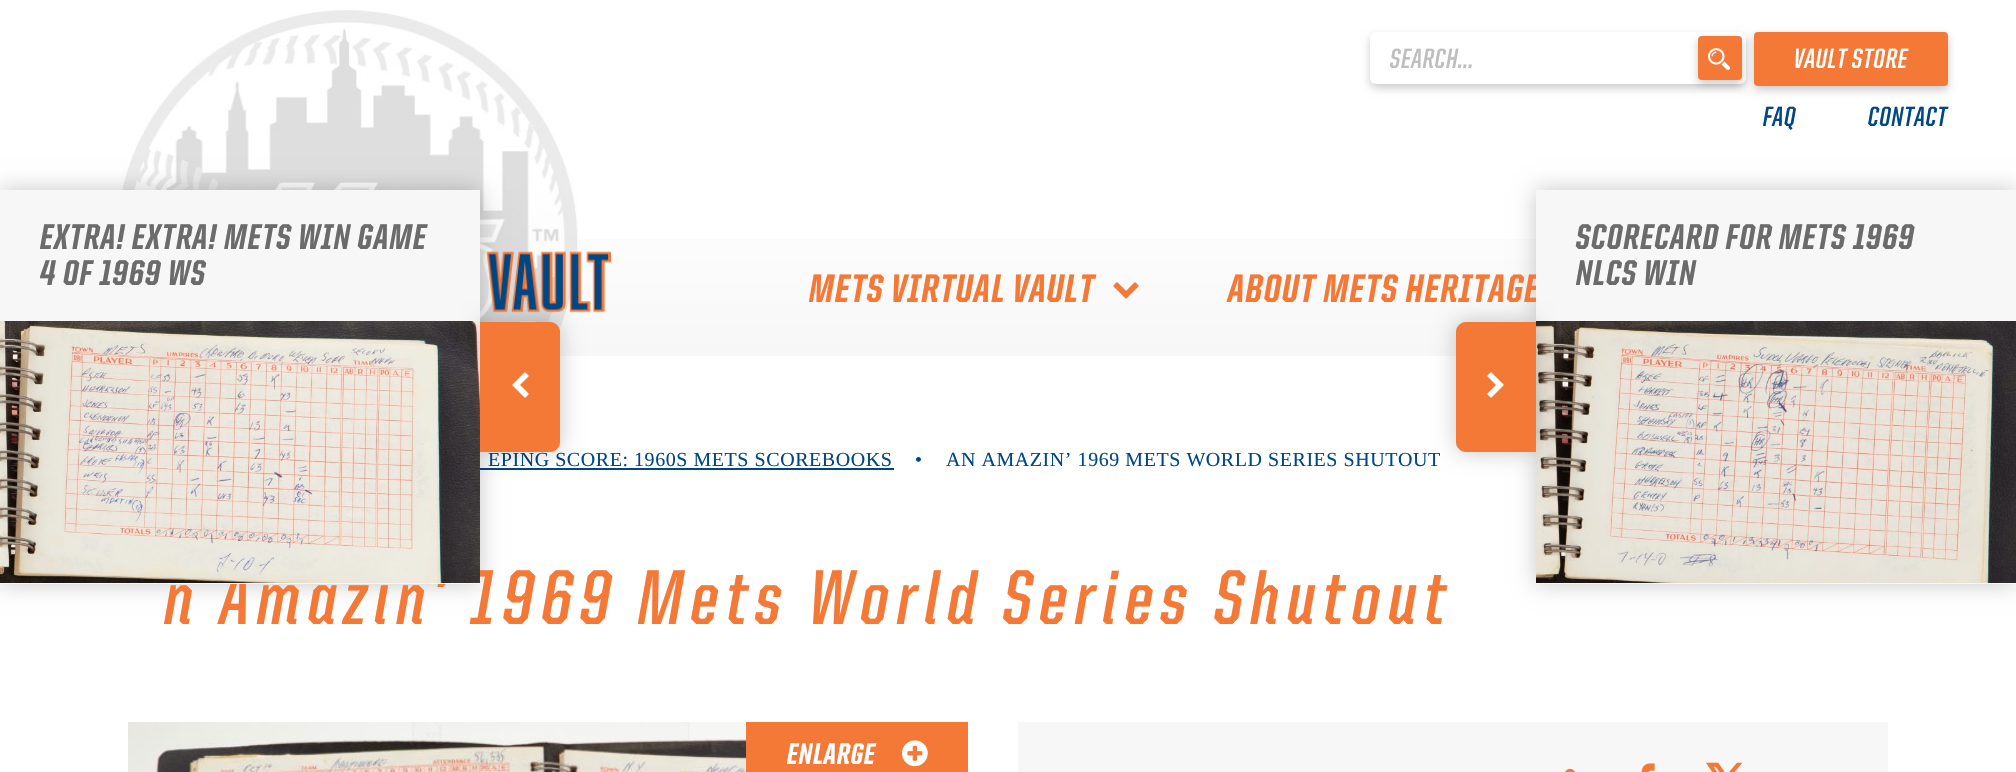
void draw(SkCanvas* canvas) {
	SkPaint fill;
	fill.setAntiAlias(true);
	auto makeFont = [&](const char* family, int weight, float size, bool italic = false) {
		SkFontStyle style(weight, SkFontStyle::kNormal_Width,
			italic ? SkFontStyle::kItalic_Slant : SkFontStyle::kUpright_Slant);
		SkFont result(fontMgr->matchFamilyStyle(family, style), size);
		result.setSubpixel(true);
		return result;
	};
	auto spacedText = [&](const char* s, float x, float y, const SkFont& font, const SkPaint& ink, float letter, float word) {
		std::vector<SkGlyphID> glyphs(font.countText(s, strlen(s), SkTextEncoding::kUTF8));
		std::vector<float> xs(glyphs.size());
		font.textToGlyphs(s, strlen(s), SkTextEncoding::kUTF8, glyphs);
		font.getXPos(glyphs, xs, x);
		float extra = 0;
		for (size_t i = 0; i < glyphs.size(); i++) {
			xs[i] += extra;
			extra += letter + word * (glyphs[i] == font.unicharToGlyph(' '));
		}
		canvas->drawTextBlob(SkTextBlob::MakeFromPosHGlyphs(glyphs, xs, y, font), 0, 0, ink);
	};
	auto box = [&](float l, float t, float r, float b) {
		canvas->drawRect(SkRect::MakeLTRB(l, t, r, b), fill);
	};
	auto roundBox = [&](float l, float t, float r, float b, float radius) {
		canvas->drawRoundRect(SkRect::MakeLTRB(l, t, r, b), radius, radius, fill);
	};
	auto picture = [&](const char* path, float l, float t, float r, float b) {
		auto image = SkImages::DeferredFromEncodedData(SkData::MakeFromFileName(path));
		canvas->drawImageRect(image, SkRect::MakeLTRB(l, t, r, b), SkSamplingOptions());
	};
	canvas->clear(0xFFFFFFFF);
	{
		const SkColor colors[] = {0xFFFFFFFF, 0xFFF7F7F7};
		const float stops[] = {0, 1};
		const SkPoint ends[] = {{1008, 186}, {1008, 356}};
		fill.setShader(SkGradientShader::MakeLinear(ends, colors, stops, 2, SkTileMode::kClamp));
		fill.setAlpha(255);
	}
	box(0, 239, 2016, 356);
	picture("image0.png", 117, 10, 578, 354);
	fill.setShader(nullptr);
	fill.setColor(0x33000000);
	fill.setMaskFilter(SkMaskFilter::MakeBlur(kNormal_SkBlurStyle, 4));
	canvas->drawRoundRect(SkRect::MakeLTRB(1370, 36, 1746, 88), 6, 6, fill);
	fill.setMaskFilter(nullptr);
	fill.setColor(0xFFFFFFFF);
	roundBox(1370, 32, 1746, 84, 6);
	fill.setColor(0x33000000);
	fill.setMaskFilter(SkMaskFilter::MakeBlur(kNormal_SkBlurStyle, 4));
	canvas->drawRoundRect(SkRect::MakeLTRB(1698, 40, 1742, 84), 4, 4, fill);
	fill.setMaskFilter(nullptr);
	fill.setColor(0xFFF47937);
	roundBox(1698, 36, 1742, 80, 4);
	picture("image1.png", 1708, 48, 1730, 70);
	fill.setColor(0x33000000);
	fill.setMaskFilter(SkMaskFilter::MakeBlur(kNormal_SkBlurStyle, 4));
	canvas->drawRoundRect(SkRect::MakeLTRB(1754, 36, 1948, 90), 4, 4, fill);
	fill.setMaskFilter(nullptr);
	fill.setColor(0xFFF47937);
	roundBox(1754, 32, 1948, 86, 4);
	picture("image2.png", 486, 251, 611, 313);
	picture("image3.png", 1113, 282, 1139, 299);
	fill.setColor(0xFF004785);
	box(480, 468, 894, 470);
	fill.setColor(0x38000000);
	fill.setMaskFilter(SkMaskFilter::MakeBlur(kNormal_SkBlurStyle, 11));
	canvas->drawRect(SkRect::MakeLTRB(0, 190, 480, 584), fill);
	fill.setMaskFilter(nullptr);
	fill.setMaskFilter(SkMaskFilter::MakeBlur(kNormal_SkBlurStyle, 11));
	canvas->drawRect(SkRect::MakeLTRB(1536, 190, 2016, 584), fill);
	fill.setMaskFilter(nullptr);
	picture("image8.png", 128, 722, 746, 772);
	fill.setColor(0xFFF47937);
	box(746, 722, 968, 772);
	picture("image9.png", 902, 740, 928, 767);
	fill.setColor(0xFFF7F7F7);
	box(1018, 722, 1888, 772);
	picture("image10.png", 1564, 768, 1576, 772);
	picture("image11.png", 1641, 763, 1655, 772);
	picture("image12.png", 1706, 762, 1743, 772);
	auto font1 = makeFont("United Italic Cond", 700, 28);
	fill.setColor(0xFFBEBEBE);
	spacedText("SEARCH...", 1390, 68, font1, fill, 0.6f, 0);
	fill.setColor(0xFFFFFFFF);
	spacedText("VAULT STORE", 1794, 68, font1, fill, 0.6f, 0);
	fill.setColor(0xFF004785);
	spacedText("FAQ", 1763, 126, font1, fill, 0.6f, 0);
	spacedText("CONTACT", 1868, 126, font1, fill, 0.6f, 0);
	auto font2 = makeFont("United Italic Cond", 900, 40);
	fill.setColor(0xFFF47937);
	spacedText("METS VIRTUAL VAULT", 809, 302, font2, fill, 1.1f, 0);
	spacedText("ABOUT METS HERITAGE", 1228, 302, font2, fill, 1.1f, 0);
	fill.setColor(0xFFF7F7F7);
	box(1536, 190, 2016, 584);
	auto font3 = makeFont("United Italic Cond", 900, 36);
	fill.setColor(0xFF6B6B6B);
	spacedText("SCORECARD FOR METS 1969", 1576, 249, font3, fill, 1, 0);
	spacedText("NLCS WIN", 1576, 285, font3, fill, 1, 0);
	picture("image6.png", 1536, 321, 2016, 583);
	fill.setColor(0x38000000);
	fill.setMaskFilter(SkMaskFilter::MakeBlur(kNormal_SkBlurStyle, 11));
	canvas->drawRoundRect(SkRect::MakeLTRB(1456, 322, 1536, 452), 10, 10, fill);
	fill.setMaskFilter(nullptr);
	fill.setColor(0xFFF47937);
	canvas->drawPath(SkPathBuilder().moveTo(1466, 322).lineTo(1536, 322).lineTo(1536, 452).lineTo(1466, 452).cubicTo(1460.5f, 452, 1456, 447.5f, 1456, 442).lineTo(1456, 332).cubicTo(1456, 326.5f, 1460.5f, 322, 1466, 322).close().detach(), fill);
	picture("image7.png", 1487, 372, 1504, 398);
	auto font4 = makeFont("Liberation Serif", 400, 20);
	fill.setColor(0xFF004785);
	spacedText("EPING SCORE: 1960S METS SCOREBOOKS", 488, 466, font4, fill, 0.55f, 0);
	spacedText("•", 915, 466, font4, fill, 0.55f, 0);
	spacedText("AN AMAZIN’ 1969 METS WORLD SERIES SHUTOUT", 946, 466, font4, fill, 0.55f, 0);
	auto font5 = makeFont("United Italic Cond", 700, 78);
	fill.setColor(0xFFF47937);
	spacedText("n Amazin’ 1969 Mets World Series Shutout", 165, 624, font5, fill, 7.35f, 0);
	fill.setColor(0xFFF7F7F7);
	box(0, 190, 480, 584);
	picture("image4.png", 0, 321, 480, 583);
	fill.setColor(0x38000000);
	fill.setMaskFilter(SkMaskFilter::MakeBlur(kNormal_SkBlurStyle, 11));
	canvas->drawRoundRect(SkRect::MakeLTRB(480, 322, 560, 452), 10, 10, fill);
	fill.setMaskFilter(nullptr);
	fill.setColor(0xFFF47937);
	canvas->drawPath(SkPathBuilder().moveTo(480, 322).lineTo(550, 322).cubicTo(555.5f, 322, 560, 326.5f, 560, 332).lineTo(560, 442).cubicTo(560, 447.5f, 555.5f, 452, 550, 452).lineTo(480, 452).close().detach(), fill);
	picture("image5.png", 512, 372, 529, 398);
	fill.setColor(0xFF6B6B6B);
	spacedText("4 OF 1969 WS", 40, 285, font3, fill, 1, 0);
	spacedText("EXTRA! EXTRA! METS WIN GAME", 40, 249, font3, fill, 1, 0);
	auto font6 = makeFont("United Italic Cond", 900, 30);
	fill.setColor(0xFFFFFFFF);
	spacedText("ENLARGE", 787, 764, font6, fill, 0.75f, 0);
}
